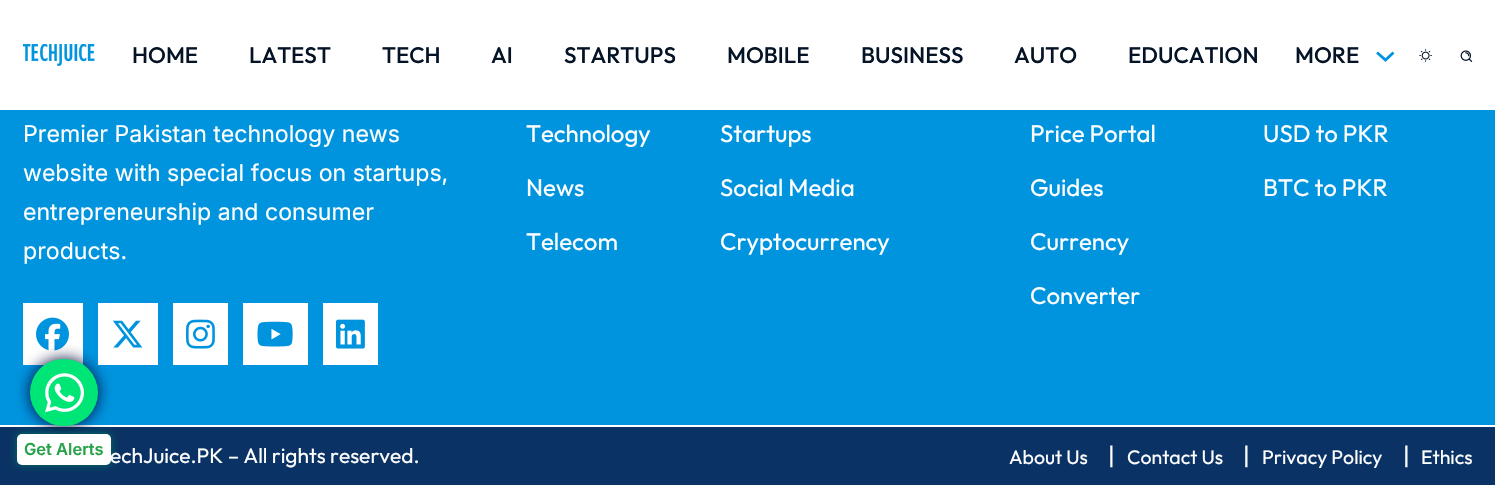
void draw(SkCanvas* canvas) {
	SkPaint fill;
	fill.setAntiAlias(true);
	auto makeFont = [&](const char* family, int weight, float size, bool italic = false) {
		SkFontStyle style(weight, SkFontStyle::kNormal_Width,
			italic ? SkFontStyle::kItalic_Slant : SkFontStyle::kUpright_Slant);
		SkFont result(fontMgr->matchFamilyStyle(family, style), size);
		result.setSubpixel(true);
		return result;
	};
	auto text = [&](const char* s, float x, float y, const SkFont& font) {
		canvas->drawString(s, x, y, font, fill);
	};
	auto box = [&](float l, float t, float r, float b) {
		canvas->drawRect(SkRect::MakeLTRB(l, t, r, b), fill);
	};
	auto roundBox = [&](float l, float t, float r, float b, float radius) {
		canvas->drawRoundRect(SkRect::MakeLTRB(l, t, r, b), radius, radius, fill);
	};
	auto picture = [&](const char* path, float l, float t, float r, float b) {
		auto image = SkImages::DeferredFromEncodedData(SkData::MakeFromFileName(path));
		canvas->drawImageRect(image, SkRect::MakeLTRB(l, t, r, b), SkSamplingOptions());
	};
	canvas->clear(0xFF0094DF);
	fill.setColor(0xFFFFFFFF);
	box(0, 0, 1495, 110);
	picture("image0.png", 23, 44, 95, 66);
	fill.setStyle(SkPaint::kStroke_Style);
	fill.setStrokeWidth(2.8f);
	fill.setColor(0xFF0094DF);
	canvas->drawPath(SkPathBuilder().moveTo(1377, 52.5f).lineTo(1385.5f, 60).lineTo(1393.5f, 52.5f).detach(), fill);
	picture("image1.png", 1419, 49, 1432, 62);
	picture("image2.png", 1460, 50, 1473, 62);
	fill.setStyle(SkPaint::kFill_Style);
	fill.setColor(0xFFFFFFFF);
	box(23, 303, 83, 365);
	picture("image3.png", 36, 317, 69, 351);
	box(98, 303, 158, 365);
	picture("image4.png", 112, 320, 143, 348);
	box(173, 303, 228, 365);
	picture("image5.png", 186, 319, 215, 349);
	box(243, 303, 308, 365);
	picture("image6.png", 257, 321, 293, 347);
	box(323, 303, 378, 365);
	picture("image7.png", 336, 319, 365, 349);
	fill.setColor(0xFF0A3264);
	box(0, 427, 1495, 485);
	fill.setColor(0xFFFFFFFF);
	box(0, 425, 1495, 427);
	fill.setColor(0xFF000B39);
	fill.setMaskFilter(SkMaskFilter::MakeBlur(kNormal_SkBlurStyle, 7.5f));
	canvas->drawRoundRect(SkRect::MakeLTRB(30, 359, 98, 426), 33.5f, 33.5f, fill);
	fill.setMaskFilter(nullptr);
	fill.setColor(0xFF00E676);
	roundBox(30, 359, 98, 426, 33.5f);
	picture("image8.png", 45, 373, 84, 413);
	fill.setColor(0xFF007468);
	fill.setMaskFilter(SkMaskFilter::MakeBlur(kNormal_SkBlurStyle, 4));
	canvas->drawRoundRect(SkRect::MakeLTRB(17, 434, 111, 465), 5, 5, fill);
	fill.setMaskFilter(nullptr);
	fill.setColor(0xFFFFFFFF);
	roundBox(17, 434, 111, 465, 5);
	auto font1 = makeFont("Outfit", 500, 22.5f);
	fill.setColor(0xFF041325);
	text("HOME", 132, 63, font1);
	text("LATEST", 249, 63, font1);
	text("TECH", 382, 63, font1);
	text("AI", 491, 63, font1);
	text("STARTUPS", 564, 63, font1);
	text("MOBILE", 727, 63, font1);
	text("BUSINESS", 861, 63, font1);
	text("AUTO", 1014, 63, font1);
	text("EDUCATION", 1128, 63, font1);
	text("MORE", 1295, 63, font1);
	auto font2 = makeFont("Inter", 400, 23.1f);
	fill.setColor(0xFFFFFFFF);
	text("Premier Pakistan technology news", 23, 142, font2);
	text("website with special focus on startups,", 23, 181, font2);
	text("entrepreneurship and consumer", 23, 220, font2);
	text("products.", 23, 259, font2);
	auto font3 = makeFont("Outfit", 400, 24);
	text("Technology", 526, 142, font3);
	text("Startups", 720, 142, font3);
	text("News", 526, 196, font3);
	text("Social Media", 720, 196, font3);
	text("Telecom", 526, 250, font3);
	text("Cryptocurrency", 720, 250, font3);
	text("Price Portal", 1030, 142, font3);
	text("USD to PKR", 1263, 142, font3);
	text("Guides", 1030, 196, font3);
	text("BTC to PKR", 1263, 196, font3);
	text("Currency", 1030, 250, font3);
	text("Converter", 1030, 304, font3);
	auto font4 = makeFont("Outfit", 400, 21);
	text("echJuice.PK – All rights reserved.", 110, 463, font4);
	auto font5 = makeFont("Outfit", 400, 19.5f);
	text("About Us", 1009, 464, font5);
	text("|", 1108, 464, font3);
	text("Contact Us", 1127, 464, font5);
	text("|", 1243, 464, font3);
	text("Privacy Policy", 1262, 464, font5);
	text("|", 1403, 464, font3);
	text("Ethics", 1421, 464, font5);
	auto font6 = makeFont("Inter", 600, 16.5f);
	fill.setColor(0xFF27A24B);
	text("Get Alerts", 24, 455, font6);
}
